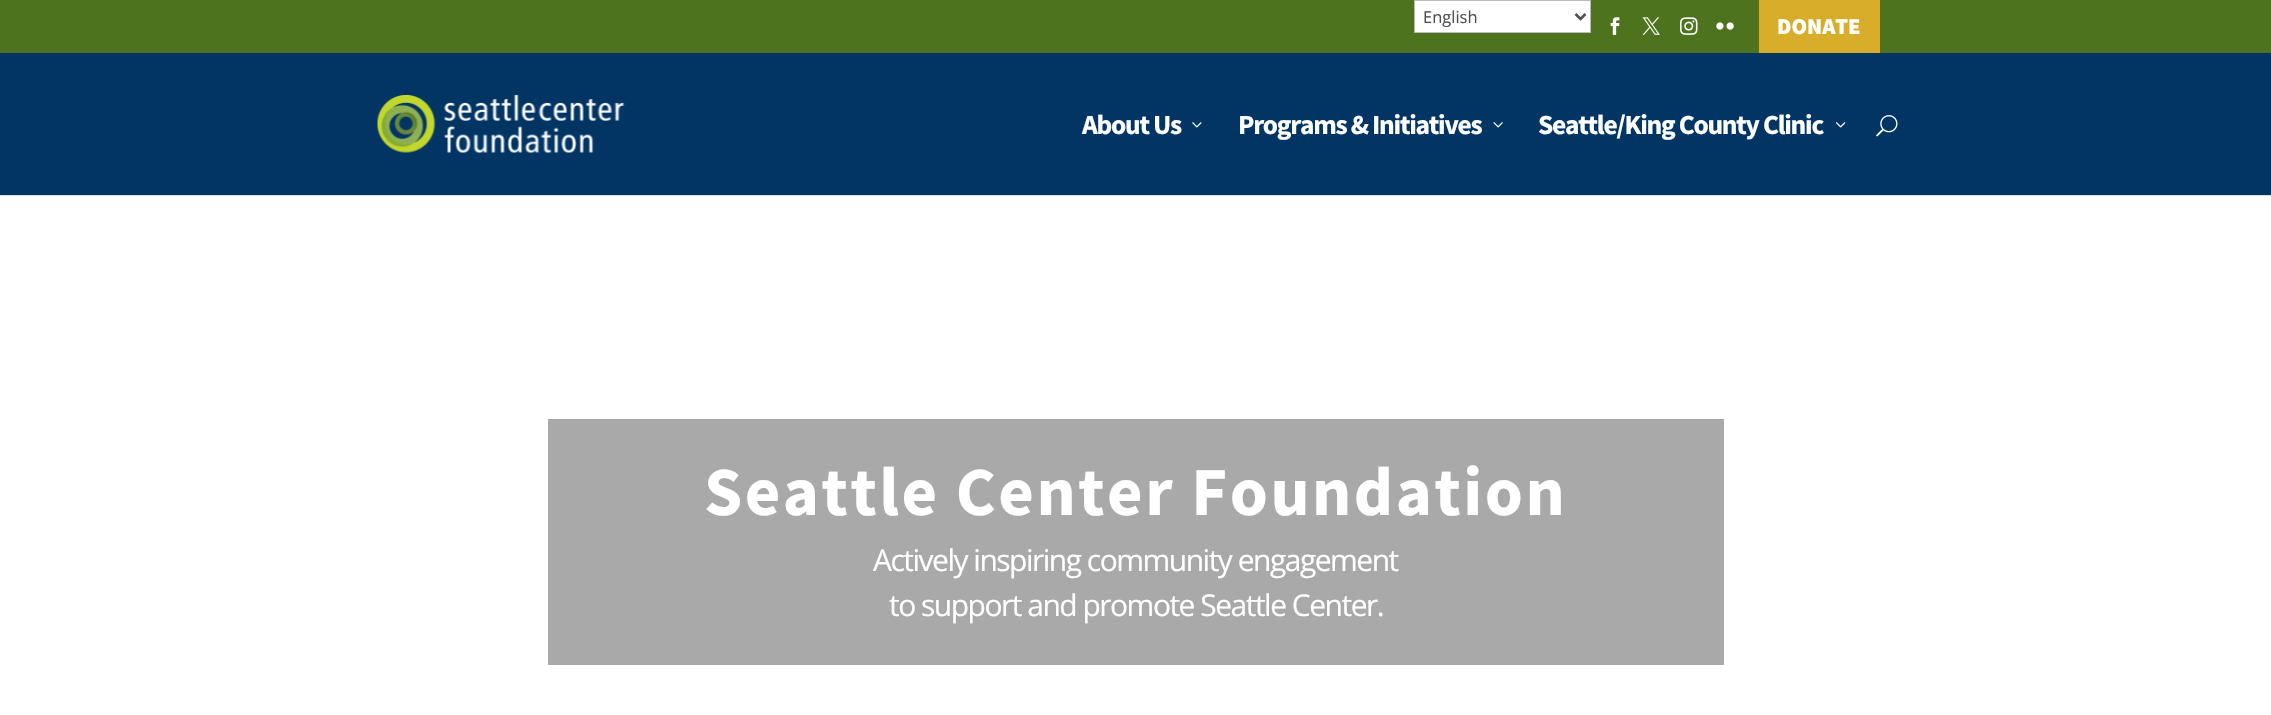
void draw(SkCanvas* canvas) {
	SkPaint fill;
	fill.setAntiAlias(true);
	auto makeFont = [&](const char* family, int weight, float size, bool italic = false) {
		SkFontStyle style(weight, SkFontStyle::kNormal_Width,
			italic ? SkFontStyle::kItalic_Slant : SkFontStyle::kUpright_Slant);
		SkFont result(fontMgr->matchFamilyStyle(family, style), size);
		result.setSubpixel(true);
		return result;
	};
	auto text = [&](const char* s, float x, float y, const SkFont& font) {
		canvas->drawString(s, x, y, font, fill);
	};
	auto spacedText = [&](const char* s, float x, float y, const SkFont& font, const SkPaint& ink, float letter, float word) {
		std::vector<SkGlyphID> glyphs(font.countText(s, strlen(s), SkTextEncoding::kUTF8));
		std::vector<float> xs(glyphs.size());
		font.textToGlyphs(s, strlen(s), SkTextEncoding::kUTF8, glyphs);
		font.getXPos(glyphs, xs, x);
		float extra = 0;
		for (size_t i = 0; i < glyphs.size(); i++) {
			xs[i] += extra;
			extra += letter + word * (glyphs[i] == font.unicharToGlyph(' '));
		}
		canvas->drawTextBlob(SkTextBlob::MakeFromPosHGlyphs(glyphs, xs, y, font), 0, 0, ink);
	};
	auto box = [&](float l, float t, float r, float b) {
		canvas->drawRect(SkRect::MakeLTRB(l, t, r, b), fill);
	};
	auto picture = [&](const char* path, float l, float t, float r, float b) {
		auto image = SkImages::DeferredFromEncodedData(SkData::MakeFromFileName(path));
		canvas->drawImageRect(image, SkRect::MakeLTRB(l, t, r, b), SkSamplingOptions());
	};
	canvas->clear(0xFF4D731E);
	fill.setColor(0xFFFFFFFF);
	canvas->drawRect(SkRect::MakeLTRB(1414.5f, 0.5f, 1590.5f, 32.5f), fill);
	fill.setStyle(SkPaint::kStroke_Style);
	fill.setStrokeWidth(1);
	fill.setColor(0xFFBBBBBB);
	canvas->drawRect(SkRect::MakeLTRB(1414.5f, 0.5f, 1590.5f, 32.5f), fill);
	fill.setStrokeWidth(2.5f);
	fill.setColor(0xFF4E4E4E);
	canvas->drawPath(SkPathBuilder().moveTo(1575.5f, 14).lineTo(1580.5f, 19).lineTo(1585.5f, 14).detach(), fill);
	picture("image0.png", 1610, 17, 1620, 35);
	picture("image1.png", 1642, 17, 1660, 35);
	picture("image2.png", 1680, 17, 1698, 35);
	picture("image3.png", 1716, 22, 1734, 30);
	fill.setStyle(SkPaint::kFill_Style);
	fill.setColor(0xFFD8AD2A);
	box(1759, 0, 1880, 53);
	fill.setColor(0xFFE6E6E6);
	box(0, 195, 2271, 196);
	fill.setColor(0xFF023564);
	box(0, 53, 2271, 195);
	picture("image4.png", 377, 95, 625, 153);
	picture("image5.png", 1192, 122, 1202, 128);
	picture("image6.png", 1493, 122, 1503, 128);
	picture("image7.png", 1836, 122, 1846, 128);
	picture("image8.png", 1876, 115, 1898, 137);
	fill.setColor(0xFFFFFFFF);
	box(0, 196, 2271, 715);
	fill.setColor(0xFFA9A9A9);
	box(548, 419, 1724, 665);
	auto font1 = makeFont("Open Sans", 400, 16.5f);
	fill.setColor(0xFF4E4E4E);
	text("English", 1423, 23, font1);
	auto font2 = makeFont("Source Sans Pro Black", 900, 22.5f);
	fill.setColor(0xFFFFFFFF);
	text("DONATE", 1777, 34, font2);
	auto font3 = makeFont("Source Sans Pro", 700, 27.5f);
	spacedText("About Us", 1082, 134, font3, fill, -1.25f, 0);
	spacedText("Programs & Initiatives", 1238, 134, font3, fill, -1.25f, 0);
	spacedText("Seattle/King County Clinic", 1538, 134, font3, fill, -1.25f, 0);
	auto font4 = makeFont("Source Sans Pro", 700, 68.75f);
	spacedText("Seattle Center Foundation", 704, 515, font4, fill, 2.5f, 0);
	auto font5 = makeFont("Open Sans", 400, 30);
	spacedText("Actively inspiring community engagement", 873, 571, font5, fill, -1.5f, 0);
	spacedText("to support and promote Seattle Center.", 889, 616, font5, fill, -1.5f, 0);
}
